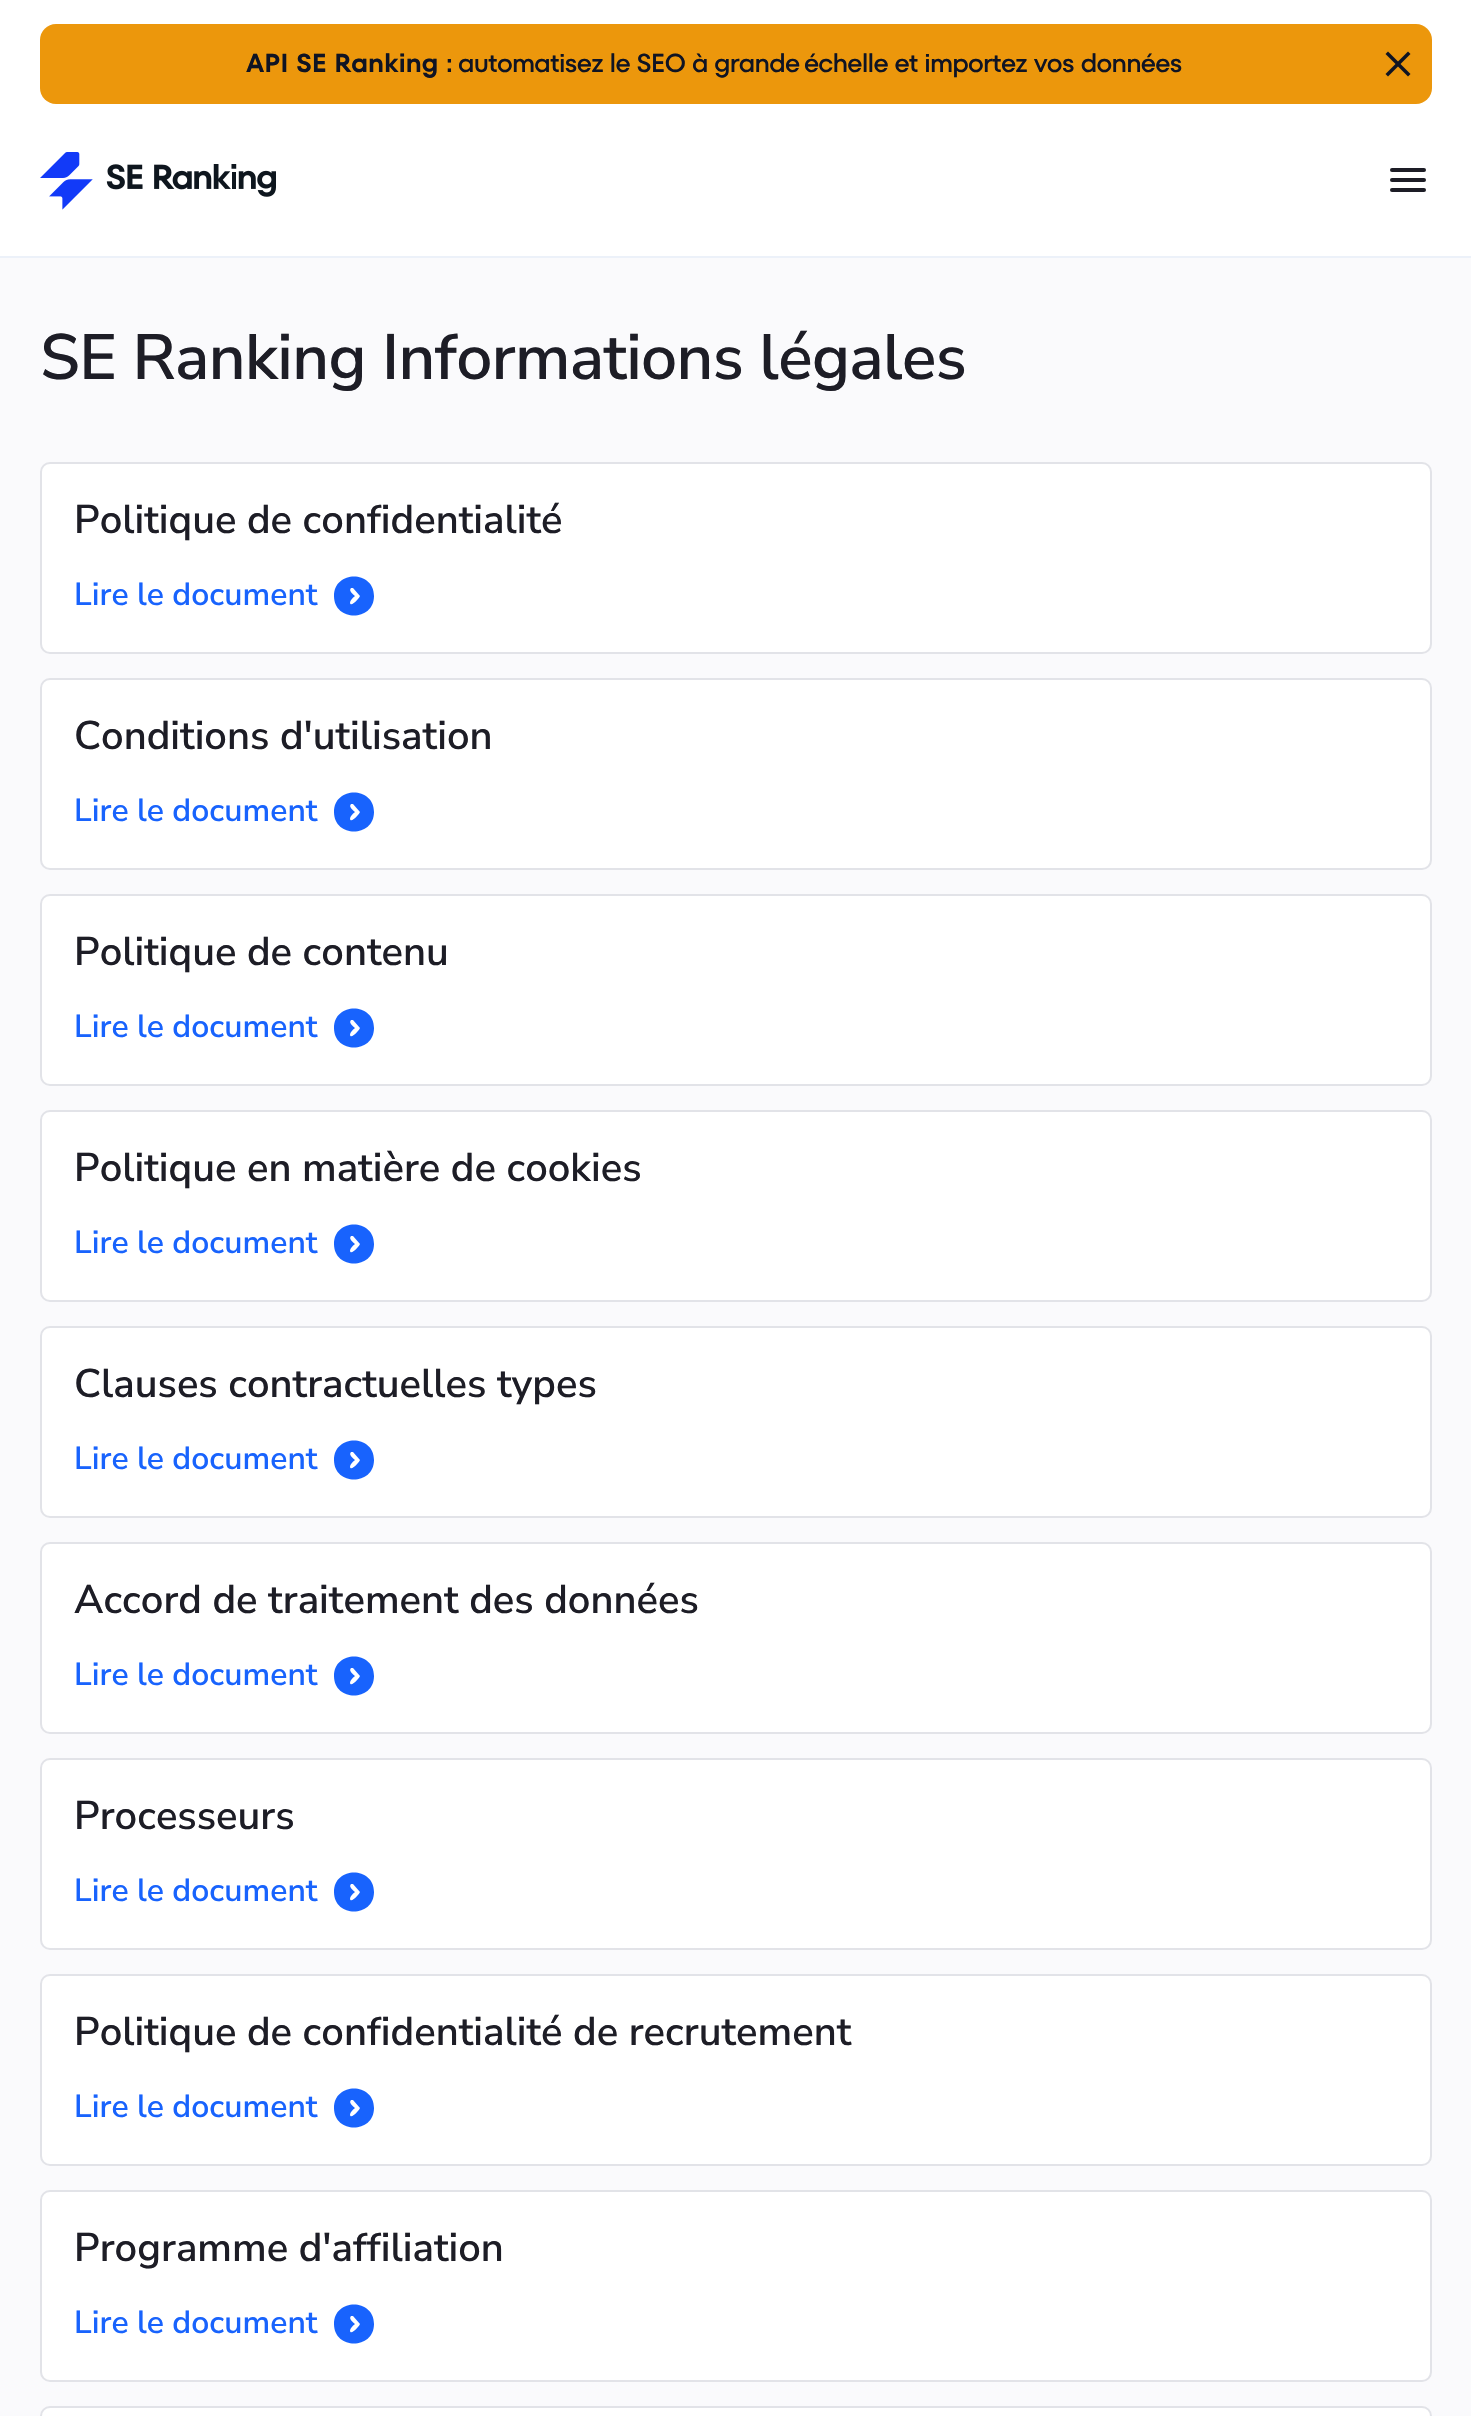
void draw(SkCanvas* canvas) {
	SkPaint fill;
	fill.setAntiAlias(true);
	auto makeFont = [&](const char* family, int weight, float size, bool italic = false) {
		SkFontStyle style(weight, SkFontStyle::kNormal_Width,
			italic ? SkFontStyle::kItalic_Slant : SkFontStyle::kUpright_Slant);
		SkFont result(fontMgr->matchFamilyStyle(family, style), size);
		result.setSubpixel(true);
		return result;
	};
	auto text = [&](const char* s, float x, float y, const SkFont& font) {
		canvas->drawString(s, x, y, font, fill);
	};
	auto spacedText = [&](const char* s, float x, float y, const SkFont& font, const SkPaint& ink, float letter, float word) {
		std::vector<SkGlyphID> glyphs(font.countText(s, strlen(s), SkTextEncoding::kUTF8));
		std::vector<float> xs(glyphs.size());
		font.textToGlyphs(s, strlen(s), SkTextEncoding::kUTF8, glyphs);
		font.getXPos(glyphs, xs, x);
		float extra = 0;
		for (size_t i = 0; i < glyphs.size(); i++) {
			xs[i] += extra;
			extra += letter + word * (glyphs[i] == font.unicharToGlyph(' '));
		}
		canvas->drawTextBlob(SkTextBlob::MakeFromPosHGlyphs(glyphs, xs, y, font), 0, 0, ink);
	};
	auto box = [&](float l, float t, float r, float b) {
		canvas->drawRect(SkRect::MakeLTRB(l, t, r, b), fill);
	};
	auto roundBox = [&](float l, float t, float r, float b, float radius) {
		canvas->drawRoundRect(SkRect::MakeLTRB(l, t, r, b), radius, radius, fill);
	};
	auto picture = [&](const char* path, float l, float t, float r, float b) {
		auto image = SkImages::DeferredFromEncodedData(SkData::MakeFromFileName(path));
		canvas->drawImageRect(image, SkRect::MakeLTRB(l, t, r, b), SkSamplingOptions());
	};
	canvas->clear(0xFFFFFFFF);
	fill.setColor(0xFFECF1F9);
	box(0, 256, 1471, 258);
	fill.setColor(0xFFEC970C);
	roundBox(40, 24, 1432, 104, 16);
	fill.setColor(0xFF101423);
	canvas->drawPath(SkPathBuilder().moveTo(1408, 51.5f).lineTo(1410.5f, 54).lineTo(1388, 76.5f).lineTo(1385.5f, 74).close().detach(), fill);
	canvas->drawPath(SkPathBuilder().moveTo(1385.5f, 54).lineTo(1388, 51.5f).lineTo(1410.5f, 74).lineTo(1408, 76.5f).close().detach(), fill);
	picture("image0.png", 40, 152, 276, 210);
	fill.setColor(0xFF1D1D26);
	roundBox(1390, 168, 1426, 172, 2);
	roundBox(1390, 178, 1426, 182, 2);
	roundBox(1390, 188, 1426, 192, 2);
	fill.setColor(0xFFFAFAFC);
	box(0, 258, 1471, 2416);
	fill.setColor(0xFFFFFFFF);
	canvas->drawRoundRect(SkRect::MakeLTRB(41, 463, 1431, 653), 9, 9, fill);
	fill.setStyle(SkPaint::kStroke_Style);
	fill.setStrokeWidth(2);
	fill.setColor(0xFFE2E3E8);
	canvas->drawRoundRect(SkRect::MakeLTRB(41, 463, 1431, 653), 9, 9, fill);
	fill.setStyle(SkPaint::kFill_Style);
	fill.setColor(0xFF1863FD);
	canvas->drawPath(SkPathBuilder().moveTo(334, 596).cubicTo(334, 622, 374, 622, 374, 596).cubicTo(374, 570, 334, 570, 334, 596).close().moveTo(353, 588).lineTo(360, 596).cubicTo(360, 597, 351, 608, 350, 603).cubicTo(350, 600, 354, 597, 355, 596).cubicTo(354, 595, 348, 591, 351, 588).lineTo(352, 588).close().detach(), fill);
	fill.setColor(0xFFFFFFFF);
	canvas->drawRoundRect(SkRect::MakeLTRB(41, 679, 1431, 869), 9, 9, fill);
	fill.setStyle(SkPaint::kStroke_Style);
	fill.setColor(0xFFE2E3E8);
	canvas->drawRoundRect(SkRect::MakeLTRB(41, 679, 1431, 869), 9, 9, fill);
	fill.setStyle(SkPaint::kFill_Style);
	fill.setColor(0xFF1863FD);
	canvas->drawPath(SkPathBuilder().moveTo(334, 812).cubicTo(334, 838, 374, 838, 374, 812).cubicTo(374, 786, 334, 786, 334, 812).close().moveTo(353, 804).lineTo(360, 812).cubicTo(360, 813, 351, 824, 350, 819).cubicTo(350, 816, 354, 813, 355, 812).cubicTo(354, 811, 348, 807, 351, 804).lineTo(352, 804).close().detach(), fill);
	fill.setColor(0xFFFFFFFF);
	canvas->drawRoundRect(SkRect::MakeLTRB(41, 895, 1431, 1085), 9, 9, fill);
	fill.setStyle(SkPaint::kStroke_Style);
	fill.setColor(0xFFE2E3E8);
	canvas->drawRoundRect(SkRect::MakeLTRB(41, 895, 1431, 1085), 9, 9, fill);
	fill.setStyle(SkPaint::kFill_Style);
	fill.setColor(0xFF1863FD);
	canvas->drawPath(SkPathBuilder().moveTo(334, 1028).cubicTo(334, 1054, 374, 1054, 374, 1028).cubicTo(374, 1002, 334, 1002, 334, 1028).close().moveTo(353, 1020).lineTo(360, 1028).cubicTo(360, 1029, 351, 1040, 350, 1035).cubicTo(350, 1032, 354, 1029, 355, 1028).cubicTo(354, 1027, 348, 1023, 351, 1020).lineTo(352, 1020).close().detach(), fill);
	fill.setColor(0xFFFFFFFF);
	canvas->drawRoundRect(SkRect::MakeLTRB(41, 1111, 1431, 1301), 9, 9, fill);
	fill.setStyle(SkPaint::kStroke_Style);
	fill.setColor(0xFFE2E3E8);
	canvas->drawRoundRect(SkRect::MakeLTRB(41, 1111, 1431, 1301), 9, 9, fill);
	fill.setStyle(SkPaint::kFill_Style);
	fill.setColor(0xFF1863FD);
	canvas->drawPath(SkPathBuilder().moveTo(334, 1244).cubicTo(334, 1270, 374, 1270, 374, 1244).cubicTo(374, 1218, 334, 1218, 334, 1244).close().moveTo(353, 1236).lineTo(360, 1244).cubicTo(360, 1245, 351, 1256, 350, 1251).cubicTo(350, 1248, 354, 1245, 355, 1244).cubicTo(354, 1243, 348, 1239, 351, 1236).lineTo(352, 1236).close().detach(), fill);
	fill.setColor(0xFFFFFFFF);
	canvas->drawRoundRect(SkRect::MakeLTRB(41, 1327, 1431, 1517), 9, 9, fill);
	fill.setStyle(SkPaint::kStroke_Style);
	fill.setColor(0xFFE2E3E8);
	canvas->drawRoundRect(SkRect::MakeLTRB(41, 1327, 1431, 1517), 9, 9, fill);
	fill.setStyle(SkPaint::kFill_Style);
	fill.setColor(0xFF1863FD);
	canvas->drawPath(SkPathBuilder().moveTo(334, 1460).cubicTo(334, 1486, 374, 1486, 374, 1460).cubicTo(374, 1434, 334, 1434, 334, 1460).close().moveTo(353, 1452).lineTo(360, 1460).cubicTo(360, 1461, 351, 1472, 350, 1467).cubicTo(350, 1464, 354, 1461, 355, 1460).cubicTo(354, 1459, 348, 1455, 351, 1452).lineTo(352, 1452).close().detach(), fill);
	fill.setColor(0xFFFFFFFF);
	canvas->drawRoundRect(SkRect::MakeLTRB(41, 1543, 1431, 1733), 9, 9, fill);
	fill.setStyle(SkPaint::kStroke_Style);
	fill.setColor(0xFFE2E3E8);
	canvas->drawRoundRect(SkRect::MakeLTRB(41, 1543, 1431, 1733), 9, 9, fill);
	fill.setStyle(SkPaint::kFill_Style);
	fill.setColor(0xFF1863FD);
	canvas->drawPath(SkPathBuilder().moveTo(334, 1676).cubicTo(334, 1702, 374, 1702, 374, 1676).cubicTo(374, 1650, 334, 1650, 334, 1676).close().moveTo(353, 1668).lineTo(360, 1676).cubicTo(360, 1677, 351, 1688, 350, 1683).cubicTo(350, 1680, 354, 1677, 355, 1676).cubicTo(354, 1675, 348, 1671, 351, 1668).lineTo(352, 1668).close().detach(), fill);
	fill.setColor(0xFFFFFFFF);
	canvas->drawRoundRect(SkRect::MakeLTRB(41, 1759, 1431, 1949), 9, 9, fill);
	fill.setStyle(SkPaint::kStroke_Style);
	fill.setColor(0xFFE2E3E8);
	canvas->drawRoundRect(SkRect::MakeLTRB(41, 1759, 1431, 1949), 9, 9, fill);
	fill.setStyle(SkPaint::kFill_Style);
	fill.setColor(0xFF1863FD);
	canvas->drawPath(SkPathBuilder().moveTo(334, 1892).cubicTo(334, 1918, 374, 1918, 374, 1892).cubicTo(374, 1866, 334, 1866, 334, 1892).close().moveTo(353, 1884).lineTo(360, 1892).cubicTo(360, 1893, 351, 1904, 350, 1899).cubicTo(350, 1896, 354, 1893, 355, 1892).cubicTo(354, 1891, 348, 1887, 351, 1884).lineTo(352, 1884).close().detach(), fill);
	fill.setColor(0xFFFFFFFF);
	canvas->drawRoundRect(SkRect::MakeLTRB(41, 1975, 1431, 2165), 9, 9, fill);
	fill.setStyle(SkPaint::kStroke_Style);
	fill.setColor(0xFFE2E3E8);
	canvas->drawRoundRect(SkRect::MakeLTRB(41, 1975, 1431, 2165), 9, 9, fill);
	fill.setStyle(SkPaint::kFill_Style);
	fill.setColor(0xFF1863FD);
	canvas->drawPath(SkPathBuilder().moveTo(334, 2108).cubicTo(334, 2134, 374, 2134, 374, 2108).cubicTo(374, 2082, 334, 2082, 334, 2108).close().moveTo(353, 2100).lineTo(360, 2108).cubicTo(360, 2109, 351, 2120, 350, 2115).cubicTo(350, 2112, 354, 2109, 355, 2108).cubicTo(354, 2107, 348, 2103, 351, 2100).lineTo(352, 2100).close().detach(), fill);
	fill.setColor(0xFFFFFFFF);
	canvas->drawRoundRect(SkRect::MakeLTRB(41, 2191, 1431, 2381), 9, 9, fill);
	fill.setStyle(SkPaint::kStroke_Style);
	fill.setColor(0xFFE2E3E8);
	canvas->drawRoundRect(SkRect::MakeLTRB(41, 2191, 1431, 2381), 9, 9, fill);
	fill.setStyle(SkPaint::kFill_Style);
	fill.setColor(0xFF1863FD);
	canvas->drawPath(SkPathBuilder().moveTo(334, 2324).cubicTo(334, 2350, 374, 2350, 374, 2324).cubicTo(374, 2298, 334, 2298, 334, 2324).close().moveTo(353, 2316).lineTo(360, 2324).cubicTo(360, 2325, 351, 2336, 350, 2331).cubicTo(350, 2328, 354, 2325, 355, 2324).cubicTo(354, 2323, 348, 2319, 351, 2316).lineTo(352, 2316).close().detach(), fill);
	fill.setColor(0xFFFFFFFF);
	canvas->drawRoundRect(SkRect::MakeLTRB(41, 2407, 1431, 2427), 9, 9, fill);
	fill.setStyle(SkPaint::kStroke_Style);
	fill.setColor(0xFFE2E3E8);
	canvas->drawRoundRect(SkRect::MakeLTRB(41, 2407, 1431, 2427), 9, 9, fill);
	auto font1 = makeFont("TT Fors", 600, 26);
	fill.setStyle(SkPaint::kFill_Style);
	fill.setColor(0xFF101423);
	text("API SE Ranking :", 246, 72, font1);
	auto font2 = makeFont("TT Fors", 500, 26);
	spacedText("automatisez le SEO à grande", 458, 72, font2, fill, -0.8f, 0);
	spacedText("échelle et importez vos données", 804, 72, font2, fill, -0.8f, 0);
	auto font3 = makeFont("Nunito Sans", 600, 64);
	fill.setColor(0xFF1D1D26);
	spacedText("SE Ranking Informations légales", 40, 379, font3, fill, -0.65f, 0);
	auto font4 = makeFont("Nunito Sans", 600, 40);
	text("Politique de confidentialité", 74, 533, font4);
	auto font5 = makeFont("Nunito Sans", 600, 32);
	fill.setColor(0xFF1863FD);
	text("Lire le document", 74, 605, font5);
	fill.setColor(0xFF1D1D26);
	text("Conditions d'utilisation", 74, 749, font4);
	fill.setColor(0xFF1863FD);
	text("Lire le document", 74, 821, font5);
	fill.setColor(0xFF1D1D26);
	text("Politique de contenu", 74, 965, font4);
	fill.setColor(0xFF1863FD);
	text("Lire le document", 74, 1037, font5);
	fill.setColor(0xFF1D1D26);
	text("Politique en matière de cookies", 74, 1181, font4);
	fill.setColor(0xFF1863FD);
	text("Lire le document", 74, 1253, font5);
	fill.setColor(0xFF1D1D26);
	text("Clauses contractuelles types", 74, 1397, font4);
	fill.setColor(0xFF1863FD);
	text("Lire le document", 74, 1469, font5);
	fill.setColor(0xFF1D1D26);
	text("Accord de traitement des données", 74, 1613, font4);
	fill.setColor(0xFF1863FD);
	text("Lire le document", 74, 1685, font5);
	fill.setColor(0xFF1D1D26);
	text("Processeurs", 74, 1829, font4);
	fill.setColor(0xFF1863FD);
	text("Lire le document", 74, 1901, font5);
	fill.setColor(0xFF1D1D26);
	text("Politique de confidentialité de recrutement", 74, 2045, font4);
	fill.setColor(0xFF1863FD);
	text("Lire le document", 74, 2117, font5);
	fill.setColor(0xFF1D1D26);
	text("Programme d'affiliation", 74, 2261, font4);
	fill.setColor(0xFF1863FD);
	text("Lire le document", 74, 2333, font5);
}
